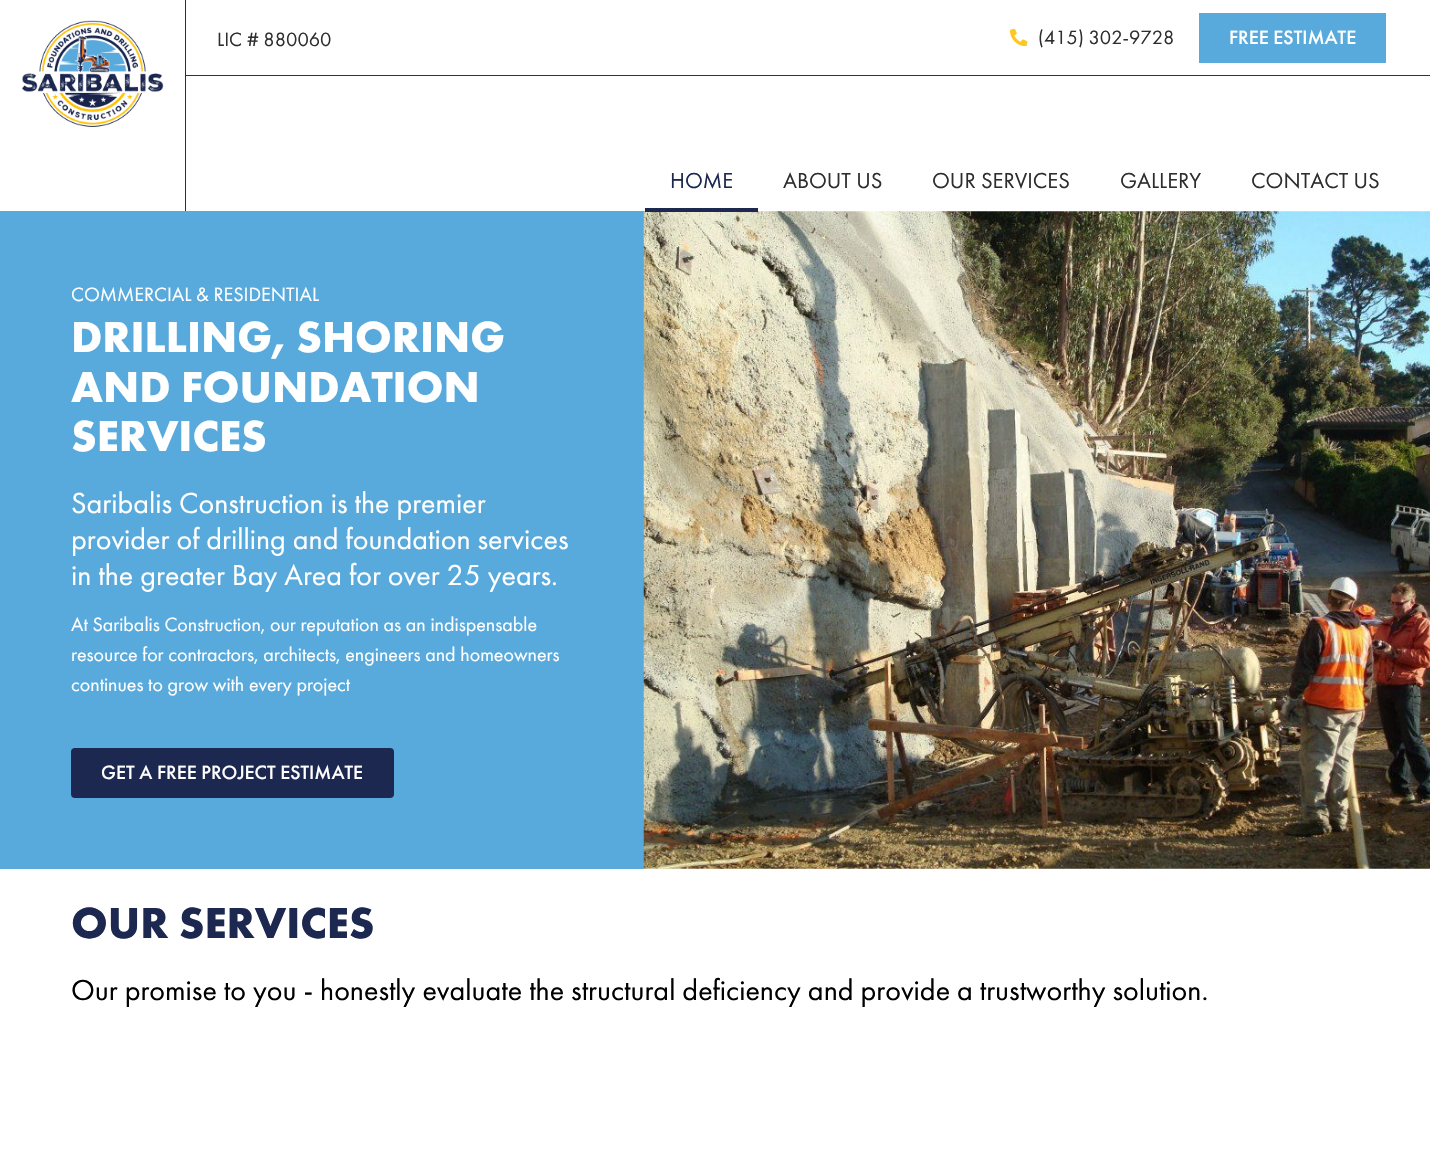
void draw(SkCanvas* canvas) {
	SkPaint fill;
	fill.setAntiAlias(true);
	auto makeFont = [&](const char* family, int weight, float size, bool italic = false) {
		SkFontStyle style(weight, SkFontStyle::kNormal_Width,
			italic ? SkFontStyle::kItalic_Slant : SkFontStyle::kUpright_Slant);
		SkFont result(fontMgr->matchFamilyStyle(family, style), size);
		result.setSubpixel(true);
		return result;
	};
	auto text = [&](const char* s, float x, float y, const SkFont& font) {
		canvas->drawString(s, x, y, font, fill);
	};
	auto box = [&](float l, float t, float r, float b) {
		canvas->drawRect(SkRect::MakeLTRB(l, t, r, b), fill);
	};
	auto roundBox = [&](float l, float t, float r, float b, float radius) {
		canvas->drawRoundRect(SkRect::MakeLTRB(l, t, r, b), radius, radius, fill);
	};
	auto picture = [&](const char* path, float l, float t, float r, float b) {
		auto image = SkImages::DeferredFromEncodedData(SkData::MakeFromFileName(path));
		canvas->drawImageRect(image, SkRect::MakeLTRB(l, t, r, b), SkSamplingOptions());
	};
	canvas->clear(0xFFFFFFFF);
	fill.setColor(0xFF2E2E2E);
	box(185, 0, 186, 211);
	picture("image0.png", 22, 20, 164, 127);
	fill.setColor(0xFF313131);
	box(186, 75, 1430, 76);
	picture("image1.png", 1010, 29, 1028, 46);
	fill.setColor(0xFF58AADD);
	box(1199, 13, 1386, 63);
	box(0, 211, 644, 869);
	picture("image2.png", 643, 211, 1430, 869);
	fill.setColor(0xFF1D2850);
	box(645, 208, 758, 212);
	roundBox(71, 748, 394, 798, 4);
	auto font1 = makeFont("Futura PT", 400, 20);
	fill.setColor(0xFF2E2E2E);
	text("LIC # 880060", 217, 46, font1);
	text("(415) 302-9728", 1038, 44, font1);
	auto font2 = makeFont("Futura PT", 500, 20);
	fill.setColor(0xFFFFFFFF);
	text("FREE ESTIMATE", 1229, 44, font2);
	auto font3 = makeFont("Futura PT", 400, 22.5f);
	fill.setColor(0xFF1D2850);
	text("HOME", 670, 188, font3);
	fill.setColor(0xFF2E2E2E);
	text("ABOUT US", 783, 188, font3);
	text("OUR SERVICES", 932, 188, font3);
	text("GALLERY", 1120, 188, font3);
	text("CONTACT US", 1251, 188, font3);
	fill.setColor(0xFFFFFFFF);
	text("COMMERCIAL & RESIDENTIAL", 71, 301, font1);
	auto font4 = makeFont("Futura PT", 700, 45);
	text("DRILLING, SHORING", 71, 352, font4);
	text("AND FOUNDATION", 71, 402, font4);
	text("SERVICES", 71, 451, font4);
	auto font5 = makeFont("Futura PT", 400, 30);
	text("Saribalis Construction is the premier", 71, 513, font5);
	text("provider of drilling and foundation services", 71, 549, font5);
	text("in the greater Bay Area for over 25 years.", 71, 585, font5);
	text("At Saribalis Construction, our reputation as an indispensable", 71, 631, font1);
	text("resource for contractors, architects, engineers and homeowners", 71, 661, font1);
	text("continues to grow with every project", 71, 691, font1);
	text("GET A FREE PROJECT ESTIMATE", 101, 779, font2);
	fill.setColor(0xFF1D2850);
	text("OUR SERVICES", 71, 938, font4);
	fill.setColor(0xFF000000);
	text("Our promise to you - honestly evaluate the structural deficiency and provide a trustworthy solution.", 71, 1000, font5);
}
